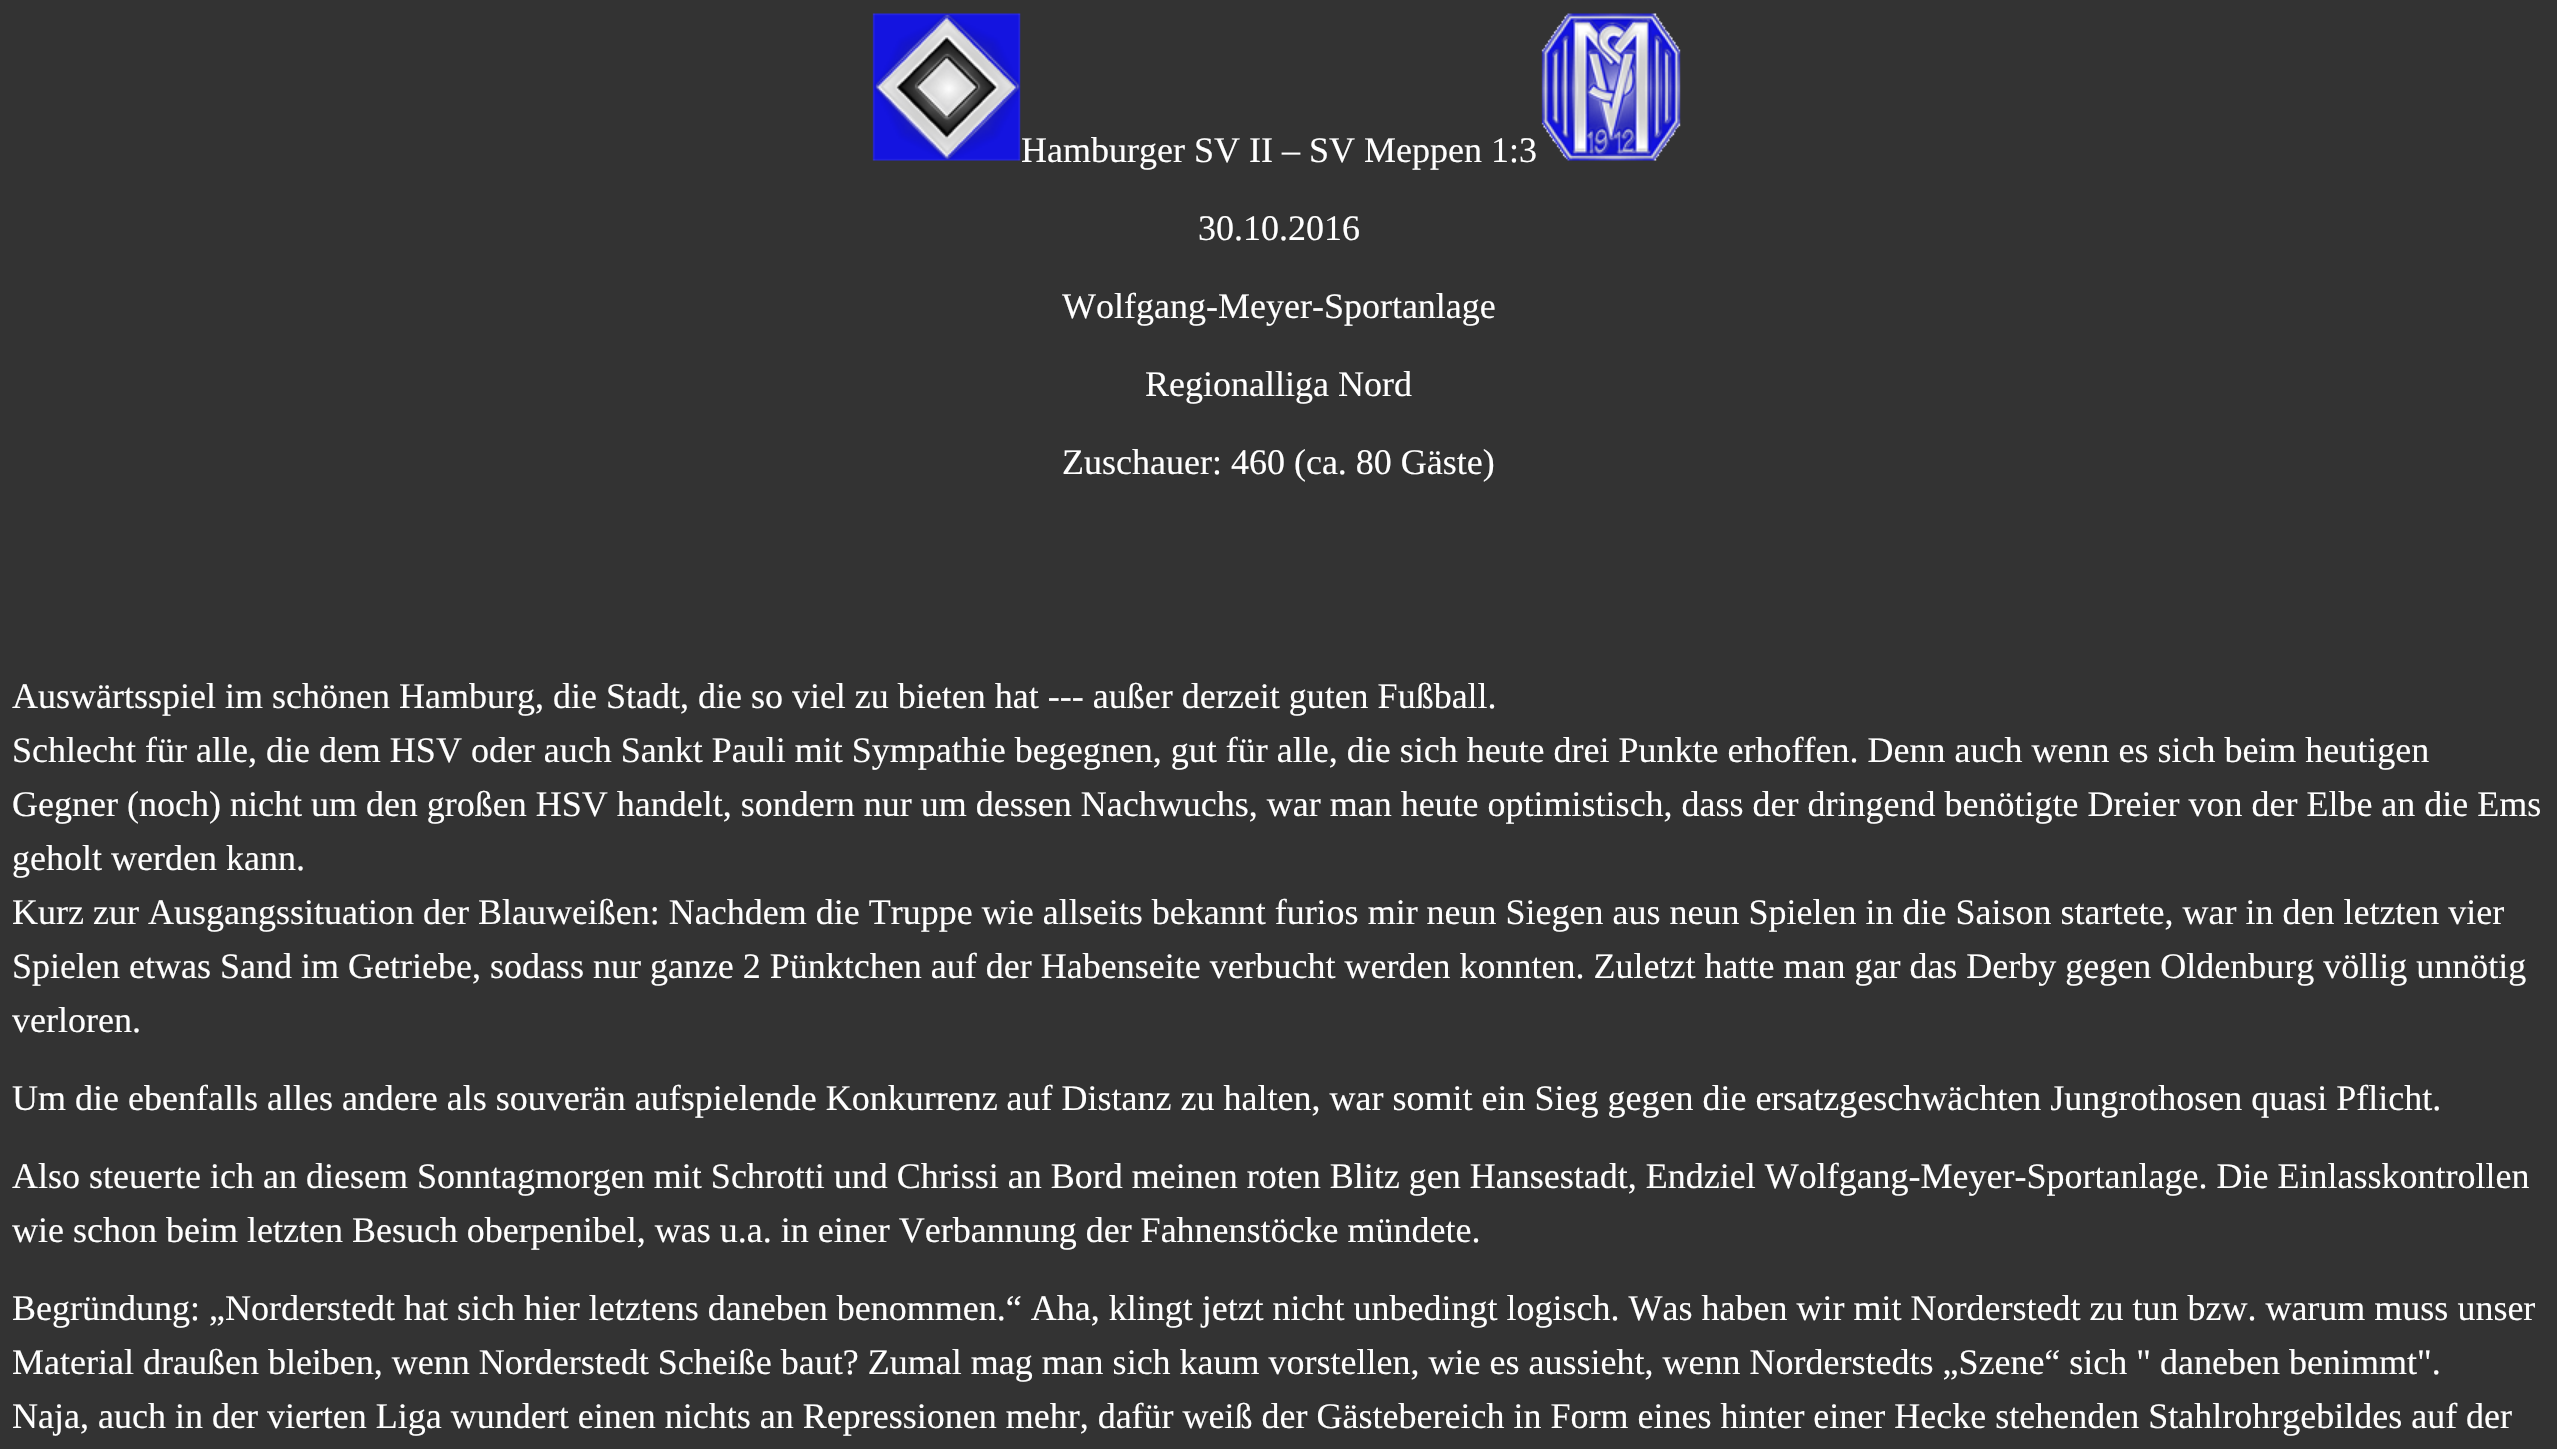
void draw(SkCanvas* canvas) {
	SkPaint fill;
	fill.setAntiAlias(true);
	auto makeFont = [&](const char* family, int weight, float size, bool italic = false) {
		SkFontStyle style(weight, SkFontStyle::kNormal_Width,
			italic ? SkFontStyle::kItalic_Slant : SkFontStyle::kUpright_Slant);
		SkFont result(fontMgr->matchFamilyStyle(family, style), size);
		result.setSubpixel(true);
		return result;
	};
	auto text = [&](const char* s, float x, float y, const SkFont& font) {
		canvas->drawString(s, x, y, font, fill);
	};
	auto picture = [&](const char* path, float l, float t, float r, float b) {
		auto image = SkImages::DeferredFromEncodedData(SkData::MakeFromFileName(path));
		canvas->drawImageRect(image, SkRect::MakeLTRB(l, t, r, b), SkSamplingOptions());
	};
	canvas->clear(0xFF333333);
	picture("image0.png", 872, 13, 1021, 161);
	picture("image1.png", 1541, 13, 1681, 161);
	auto font1 = makeFont("Liberation Serif", 400, 36);
	fill.setColor(0xFFFFFFFF);
	text("Hamburger SV II – SV Meppen 1:3", 1021, 162, font1);
	text("30.10.2016", 1198, 240, font1);
	text("Wolfgang-Meyer-Sportanlage", 1062, 318, font1);
	text("Regionalliga Nord", 1145, 396, font1);
	text("Zuschauer: 460 (ca. 80 Gäste)", 1062, 474, font1);
	text("Auswärtsspiel im schönen Hamburg, die Stadt, die so viel zu bieten hat --- außer derzeit guten Fußball.", 12, 708, font1);
	text("Schlecht für alle, die dem HSV oder auch Sankt Pauli mit Sympathie begegnen, gut für alle, die sich heute drei Punkte erhoffen. Denn auch wenn es sich beim heutigen", 12, 762, font1);
	text("Gegner (noch) nicht um den großen HSV handelt, sondern nur um dessen Nachwuchs, war man heute optimistisch, dass der dringend benötigte Dreier von der Elbe an die Ems", 12, 816, font1);
	text("geholt werden kann.", 12, 870, font1);
	text("Kurz zur Ausgangssituation der Blauweißen: Nachdem die Truppe wie allseits bekannt furios mir neun Siegen aus neun Spielen in die Saison startete, war in den letzten vier", 12, 924, font1);
	text("Spielen etwas Sand im Getriebe, sodass nur ganze 2 Pünktchen auf der Habenseite verbucht werden konnten. Zuletzt hatte man gar das Derby gegen Oldenburg völlig unnötig", 12, 978, font1);
	text("verloren.", 12, 1032, font1);
	text("Um die ebenfalls alles andere als souverän aufspielende Konkurrenz auf Distanz zu halten, war somit ein Sieg gegen die ersatzgeschwächten Jungrothosen quasi Pflicht.", 12, 1110, font1);
	text("Also steuerte ich an diesem Sonntagmorgen mit Schrotti und Chrissi an Bord meinen roten Blitz gen Hansestadt, Endziel Wolfgang-Meyer-Sportanlage. Die Einlasskontrollen", 12, 1188, font1);
	text("wie schon beim letzten Besuch oberpenibel, was u.a. in einer Verbannung der Fahnenstöcke mündete.", 12, 1242, font1);
	text("Begründung: „Norderstedt hat sich hier letztens daneben benommen.“ Aha, klingt jetzt nicht unbedingt logisch. Was haben wir mit Norderstedt zu tun bzw. warum muss unser", 12, 1320, font1);
	text("Material draußen bleiben, wenn Norderstedt Scheiße baut? Zumal mag man sich kaum vorstellen, wie es aussieht, wenn Norderstedts „Szene“ sich \" daneben benimmt\".", 12, 1374, font1);
	text("Naja, auch in der vierten Liga wundert einen nichts an Repressionen mehr, dafür weiß der Gästebereich in Form eines hinter einer Hecke stehenden Stahlrohrgebildes auf der", 12, 1428, font1);
}
